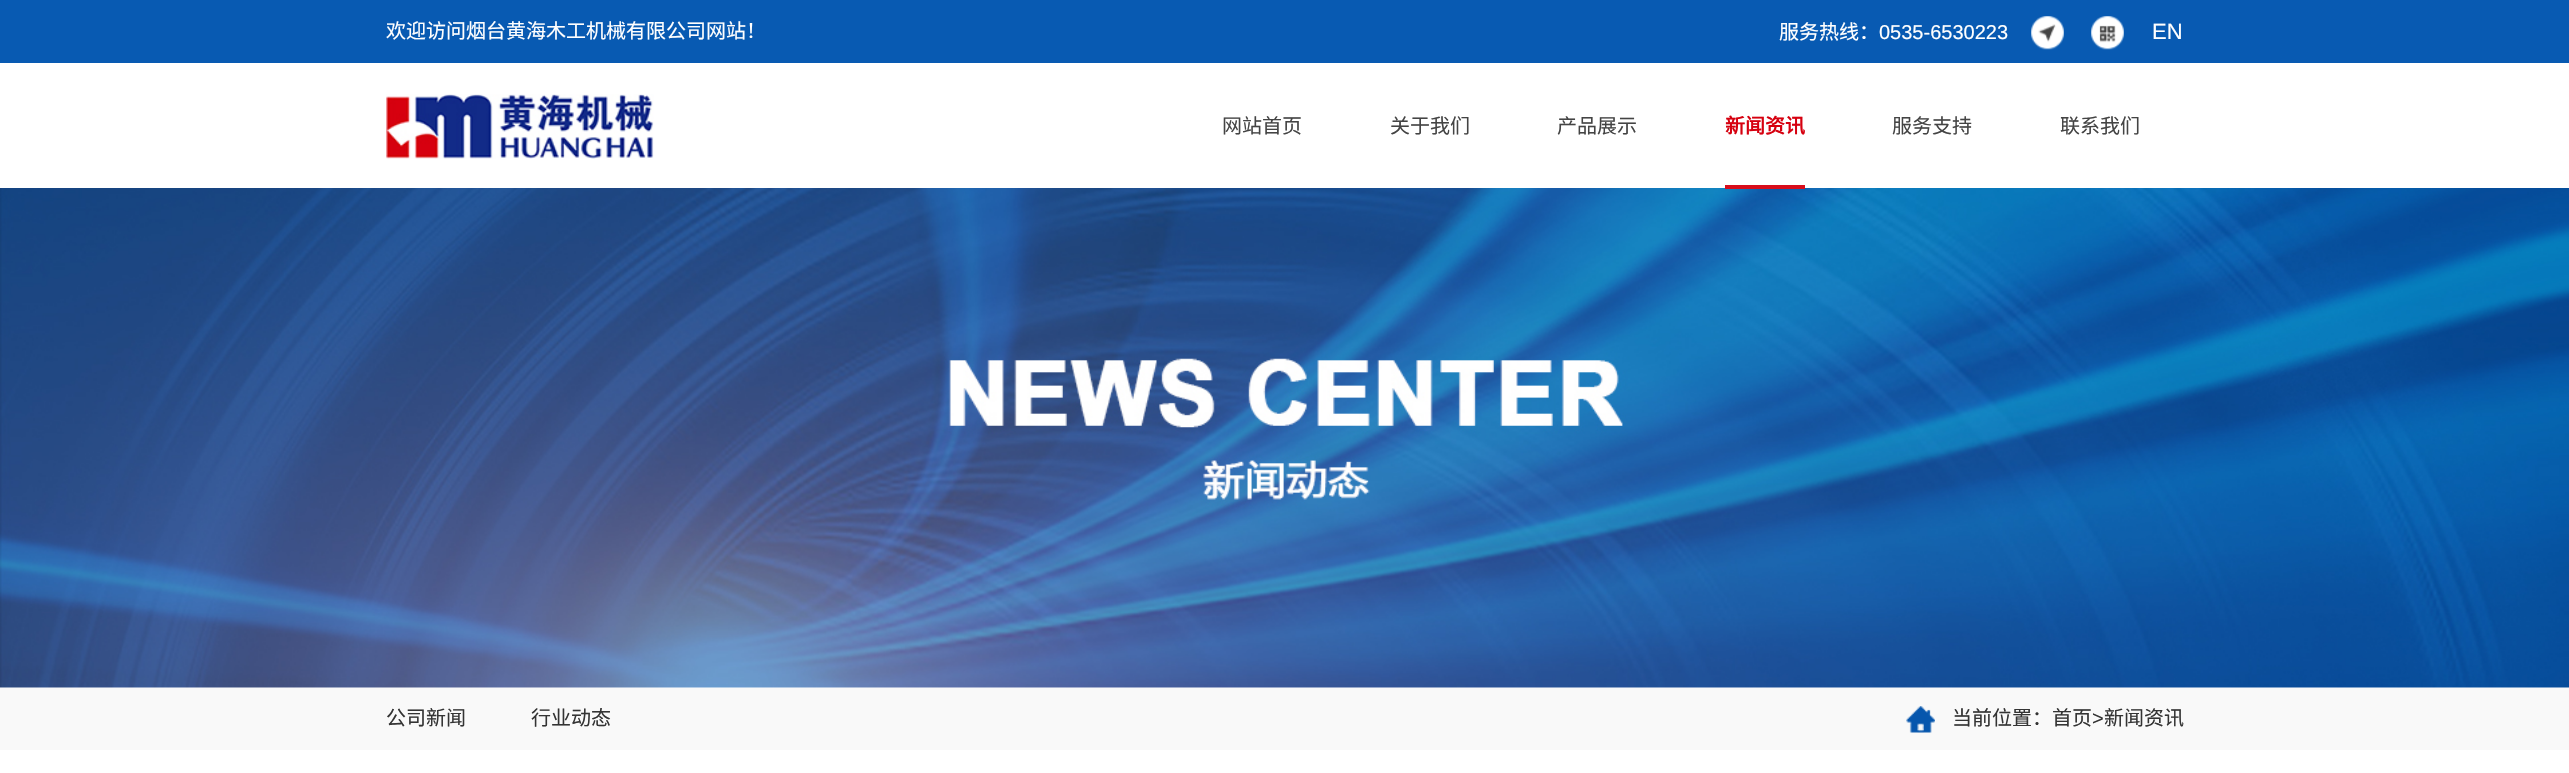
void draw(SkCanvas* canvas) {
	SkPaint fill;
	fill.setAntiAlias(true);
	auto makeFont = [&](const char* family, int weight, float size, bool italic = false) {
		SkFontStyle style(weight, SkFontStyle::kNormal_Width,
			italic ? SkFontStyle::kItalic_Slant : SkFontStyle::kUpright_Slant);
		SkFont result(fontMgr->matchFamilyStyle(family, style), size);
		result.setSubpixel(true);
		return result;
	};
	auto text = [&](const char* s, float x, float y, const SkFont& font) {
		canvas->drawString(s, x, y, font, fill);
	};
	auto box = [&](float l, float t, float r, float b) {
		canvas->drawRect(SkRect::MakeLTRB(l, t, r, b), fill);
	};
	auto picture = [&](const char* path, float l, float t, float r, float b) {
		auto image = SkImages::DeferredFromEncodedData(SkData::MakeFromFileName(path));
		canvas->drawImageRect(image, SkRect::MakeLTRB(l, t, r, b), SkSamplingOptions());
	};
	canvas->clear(0xFFFFFFFF);
	fill.setColor(0xFF085AB2);
	box(0, 0, 2569, 63);
	picture("image0.png", 2031, 16, 2064, 50);
	picture("image1.png", 2091, 16, 2124, 50);
	picture("image2.png", 386, 94, 654, 159);
	picture("image3.png", 0, 188, 2569, 688);
	fill.setColor(0xFFD80D1B);
	box(1725, 185, 1805, 189);
	fill.setColor(0xFFF9F9F9);
	box(0, 688, 2569, 750);
	picture("image4.png", 1906, 706, 1935, 733);
	auto font1 = makeFont("Noto Sans CJK SC", 400, 20);
	fill.setColor(0xFFFFFFFF);
	text("欢迎访问烟台黄海木工机械有限公司网站！", 386, 38, font1);
	text("服务热线：", 1779, 39, font1);
	auto font2 = makeFont("Liberation Sans", 400, 20);
	text("0535-6530223", 1879, 39, font2);
	auto font3 = makeFont("Liberation Sans", 400, 22);
	text("EN", 2152, 39, font3);
	fill.setColor(0xFF444444);
	text("网站首页", 1222, 133, font1);
	text("关于我们", 1390, 133, font1);
	text("产品展示", 1557, 133, font1);
	auto font4 = makeFont("Noto Sans CJK SC", 700, 20);
	fill.setColor(0xFFD6000F);
	text("新闻资讯", 1725, 133, font4);
	fill.setColor(0xFF444444);
	text("服务支持", 1892, 133, font1);
	text("联系我们", 2060, 133, font1);
	fill.setColor(0xFF343434);
	text("公司新闻", 386, 725, font1);
	text("行业动态", 531, 725, font1);
	text("当前位置：首页", 1952, 725, font1);
	text(">", 2092, 725, font2);
	text("新闻资讯", 2104, 725, font1);
}
